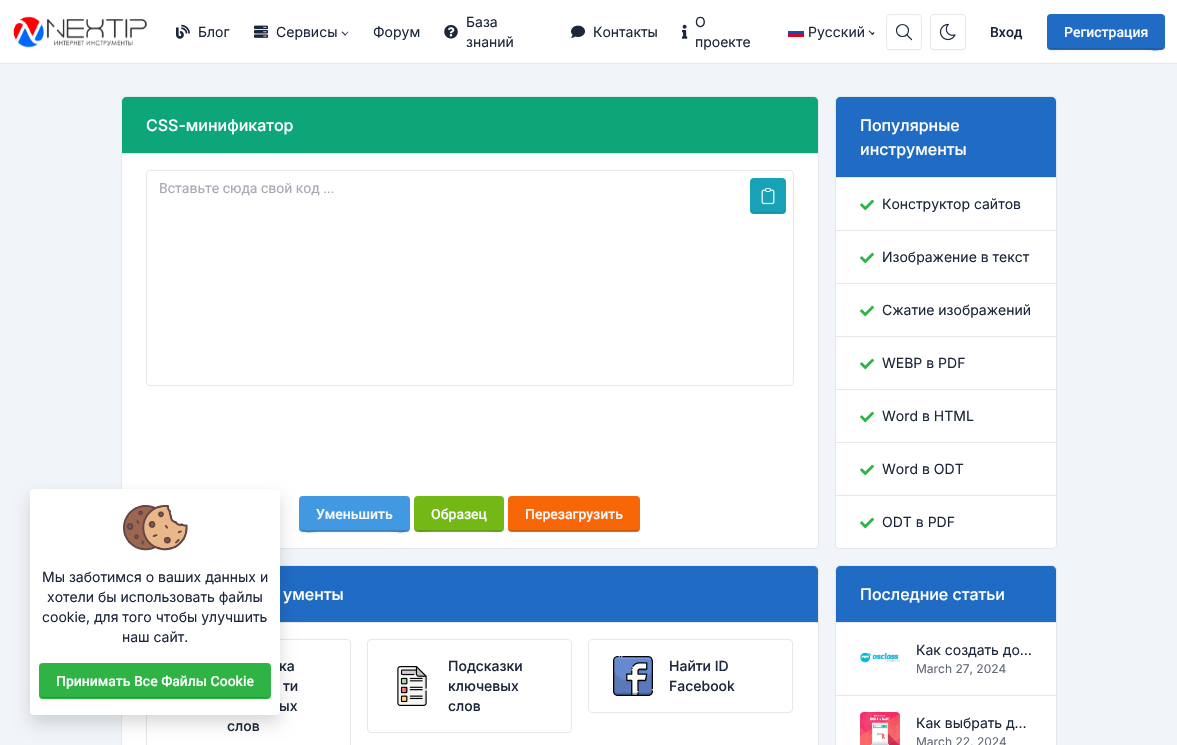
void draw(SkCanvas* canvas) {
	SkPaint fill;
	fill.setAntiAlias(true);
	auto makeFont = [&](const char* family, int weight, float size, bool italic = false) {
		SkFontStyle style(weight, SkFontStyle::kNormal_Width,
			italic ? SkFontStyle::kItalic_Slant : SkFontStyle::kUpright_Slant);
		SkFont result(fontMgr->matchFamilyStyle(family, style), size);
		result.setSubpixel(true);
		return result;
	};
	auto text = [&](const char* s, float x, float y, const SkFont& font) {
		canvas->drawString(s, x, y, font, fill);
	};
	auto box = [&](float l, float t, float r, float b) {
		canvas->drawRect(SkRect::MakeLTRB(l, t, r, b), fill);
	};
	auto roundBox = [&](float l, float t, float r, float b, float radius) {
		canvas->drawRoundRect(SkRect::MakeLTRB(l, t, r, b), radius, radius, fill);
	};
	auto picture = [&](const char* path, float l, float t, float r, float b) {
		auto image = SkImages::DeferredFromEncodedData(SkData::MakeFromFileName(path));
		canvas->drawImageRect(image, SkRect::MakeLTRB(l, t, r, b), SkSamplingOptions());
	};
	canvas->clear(0xFFF1F5F9);
	fill.setColor(0xFFFFFFFF);
	box(0, 0, 1177, 63);
	fill.setColor(0xFFE6E7E9);
	box(0, 63, 1177, 64);
	picture("image0.png", 13, 16, 147, 48);
	picture("image1.png", 176, 24, 190, 39);
	picture("image2.png", 254, 25, 268, 38);
	fill.setColor(0xFF1D273B);
	canvas->drawPath(SkPathBuilder().moveTo(344.5f, 35).lineTo(348, 31.5f).lineTo(348.5f, 32).lineTo(345, 35.5f).close().detach(), fill);
	canvas->drawPath(SkPathBuilder().moveTo(341.5f, 32).lineTo(342.5f, 31.5f).lineTo(346, 35).lineTo(345, 35.5f).close().detach(), fill);
	picture("image3.png", 444, 25, 458, 39);
	picture("image4.png", 571, 25, 585, 38);
	picture("image5.png", 682, 24, 688, 39);
	picture("image6.png", 788, 31, 804, 37);
	canvas->drawPath(SkPathBuilder().moveTo(871.5f, 34).lineTo(873.5f, 32).lineTo(874.5f, 33).lineTo(872.5f, 35).close().detach(), fill);
	canvas->drawPath(SkPathBuilder().moveTo(868.5f, 31).lineTo(869.5f, 30.5f).lineTo(873, 34).lineTo(872.5f, 35).close().detach(), fill);
	fill.setColor(0xFFF6F6F7);
	canvas->drawPath(SkPathBuilder().moveTo(886, 46).cubicTo(886, 52, 890, 51, 894.5f, 51).lineTo(913.5f, 51).cubicTo(918, 51, 922, 52, 922, 46).cubicTo(922, 48, 920, 50, 918, 50).lineTo(890, 50).cubicTo(888, 50, 886, 48, 886, 46).close().detach(), fill);
	fill.setStyle(SkPaint::kStroke_Style);
	fill.setStrokeWidth(1);
	fill.setColor(0xFFE6E7E9);
	canvas->drawRoundRect(SkRect::MakeLTRB(886.5f, 14.5f, 921.5f, 49.5f), 3.5f, 3.5f, fill);
	fill.setStrokeWidth(1.2f);
	fill.setColor(0xFF1D273B);
	canvas->drawCircle(902.5f, 30.5f, 6, fill);
	fill.setStrokeCap(SkPaint::kRound_Cap);
	fill.setStrokeJoin(SkPaint::kRound_Join);
	canvas->drawPath(SkPathBuilder().moveTo(911.5f, 39.5f).lineTo(906.5f, 34.5f).detach(), fill);
	fill.setStyle(SkPaint::kFill_Style);
	fill.setColor(0xFFF6F6F7);
	canvas->drawPath(SkPathBuilder().moveTo(930, 46).cubicTo(930, 52, 934, 51, 938.5f, 51).lineTo(957.5f, 51).cubicTo(962, 51, 966, 52, 966, 46).cubicTo(966, 48, 964, 50, 962, 50).lineTo(934, 50).cubicTo(932, 50, 930, 48, 930, 46).close().detach(), fill);
	fill.setStyle(SkPaint::kStroke_Style);
	fill.setStrokeWidth(1);
	fill.setStrokeCap(SkPaint::kButt_Cap);
	fill.setStrokeJoin(SkPaint::kMiter_Join);
	fill.setColor(0xFFE6E7E9);
	canvas->drawRoundRect(SkRect::MakeLTRB(930.5f, 14.5f, 965.5f, 49.5f), 3.5f, 3.5f, fill);
	picture("image7.png", 939, 23, 956, 41);
	fill.setStyle(SkPaint::kFill_Style);
	fill.setColor(0xFFF6F6F7);
	canvas->drawPath(SkPathBuilder().moveTo(1047, 46).cubicTo(1047, 56, 1066, 51, 1069, 51).lineTo(1143, 51).cubicTo(1146, 51, 1165, 56, 1165, 46).cubicTo(1165, 48, 1163, 50, 1161, 50).lineTo(1051, 50).cubicTo(1049, 50, 1047, 48, 1047, 46).close().detach(), fill);
	fill.setColor(0xFF206BC4);
	roundBox(1047, 14, 1165, 50, 4);
	fill.setColor(0xFF1F5DA9);
	canvas->drawPath(SkPathBuilder().moveTo(1048, 45).cubicTo(1048, 47, 1049, 49, 1051, 49).lineTo(1143, 49).cubicTo(1144, 49, 1164, 54, 1164, 45).cubicTo(1164, 47, 1163, 48, 1161, 48).lineTo(1051, 48).cubicTo(1049, 48, 1048, 47, 1048, 45).close().detach(), fill);
	fill.setColor(0xFFFFFFFF);
	canvas->drawRoundRect(SkRect::MakeLTRB(121.5f, 96.5f, 818.5f, 548.5f), 3.5f, 3.5f, fill);
	fill.setStyle(SkPaint::kStroke_Style);
	fill.setColor(0xFFE6E7E9);
	canvas->drawRoundRect(SkRect::MakeLTRB(121.5f, 96.5f, 818.5f, 548.5f), 3.5f, 3.5f, fill);
	fill.setStyle(SkPaint::kFill_Style);
	fill.setColor(0xFF0CA678);
	canvas->drawPath(SkPathBuilder().moveTo(126, 97).lineTo(814, 97).cubicTo(816, 97, 818, 99, 818, 101).lineTo(818, 154).lineTo(122, 154).lineTo(122, 101).cubicTo(122, 99, 124, 97, 126, 97).close().detach(), fill);
	fill.setColor(0xFFE6E7E9);
	box(122, 153, 818, 154);
	fill.setStyle(SkPaint::kStroke_Style);
	canvas->drawRoundRect(SkRect::MakeLTRB(146.5f, 170.5f, 793.5f, 385.5f), 3.5f, 3.5f, fill);
	fill.setStyle(SkPaint::kFill_Style);
	fill.setColor(0xFFF6F6F7);
	canvas->drawPath(SkPathBuilder().moveTo(750, 210).cubicTo(750, 216, 754, 215, 758.5f, 215).lineTo(777.5f, 215).cubicTo(782, 215, 786, 216, 786, 210).cubicTo(786, 212, 784, 214, 782, 214).lineTo(754, 214).cubicTo(752, 214, 750, 212, 750, 210).close().detach(), fill);
	fill.setColor(0xFF17A2B8);
	roundBox(750, 178, 786, 214, 4);
	fill.setColor(0xFF18899F);
	canvas->drawPath(SkPathBuilder().moveTo(751, 209).cubicTo(751, 214, 754.5f, 213, 758.5f, 213).lineTo(777.5f, 213).cubicTo(781.5f, 213, 785, 214, 785, 209).cubicTo(785, 211, 784, 212, 782, 212).lineTo(754, 212).cubicTo(752, 212, 751, 211, 751, 209).close().detach(), fill);
	picture("image8.png", 761, 188, 775, 205);
	fill.setColor(0xFFF6F6F7);
	canvas->drawPath(SkPathBuilder().moveTo(299, 528).cubicTo(299, 538, 317, 533, 320, 533).lineTo(389, 533).cubicTo(392, 533, 410, 538, 410, 528).cubicTo(410, 530, 408, 532, 406, 532).lineTo(303, 532).cubicTo(301, 532, 299, 530, 299, 528).close().detach(), fill);
	fill.setColor(0xFF4299E1);
	roundBox(299, 496, 410, 532, 4);
	fill.setColor(0xFF3B82C0);
	canvas->drawPath(SkPathBuilder().moveTo(300, 527).cubicTo(300, 536, 318, 531, 320, 531).lineTo(389, 531).cubicTo(391, 531, 409, 536, 409, 527).cubicTo(409, 529, 408, 530, 406, 530).lineTo(303, 530).cubicTo(301, 530, 300, 529, 300, 527).close().detach(), fill);
	fill.setColor(0xFFF6F6F7);
	canvas->drawPath(SkPathBuilder().moveTo(414, 528).cubicTo(414, 536, 427, 533, 432, 533).lineTo(486, 533).cubicTo(491, 533, 504, 536, 504, 528).cubicTo(504, 530, 502, 532, 500, 532).lineTo(418, 532).cubicTo(416, 532, 414, 530, 414, 528).close().detach(), fill);
	fill.setColor(0xFF74B816);
	roundBox(414, 496, 504, 532, 4);
	fill.setColor(0xFF639B1D);
	canvas->drawPath(SkPathBuilder().moveTo(415, 527).cubicTo(415, 535, 428, 531, 432, 531).lineTo(486, 531).cubicTo(490, 531, 503, 535, 503, 527).cubicTo(503, 529, 502, 530, 500, 530).lineTo(418, 530).cubicTo(416, 530, 415, 529, 415, 527).close().detach(), fill);
	fill.setColor(0xFFF6F6F7);
	canvas->drawPath(SkPathBuilder().moveTo(508, 528).lineTo(508, 529).cubicTo(508, 531, 510, 533, 512, 533).lineTo(636, 533).cubicTo(638, 533, 640, 531, 640, 529).lineTo(640, 528).cubicTo(640, 530, 638, 532, 636, 532).lineTo(512, 532).cubicTo(510, 532, 508, 530, 508, 528).close().detach(), fill);
	fill.setColor(0xFFF76707);
	roundBox(508, 496, 640, 532, 4);
	fill.setColor(0xFFCB5A11);
	canvas->drawPath(SkPathBuilder().moveTo(509, 527).cubicTo(509, 529, 509, 531, 511, 531).lineTo(637, 531).cubicTo(639, 531, 639, 529, 639, 527).cubicTo(639, 529, 638, 530, 636, 530).lineTo(512, 530).cubicTo(510, 530, 509, 529, 509, 527).close().detach(), fill);
	fill.setColor(0xFFFFFFFF);
	canvas->drawRoundRect(SkRect::MakeLTRB(121.5f, 565.5f, 818.5f, 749.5f), 3.5f, 3.5f, fill);
	fill.setStyle(SkPaint::kStroke_Style);
	fill.setColor(0xFFE6E7E9);
	canvas->drawRoundRect(SkRect::MakeLTRB(121.5f, 565.5f, 818.5f, 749.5f), 3.5f, 3.5f, fill);
	fill.setStyle(SkPaint::kFill_Style);
	fill.setColor(0xFF206BC4);
	canvas->drawPath(SkPathBuilder().moveTo(126, 566).lineTo(814, 566).cubicTo(816, 566, 818, 568, 818, 570).lineTo(818, 623).lineTo(122, 623).lineTo(122, 570).cubicTo(122, 568, 124, 566, 126, 566).close().detach(), fill);
	fill.setColor(0xFFE6E7E9);
	box(280, 622, 818, 623);
	fill.setStyle(SkPaint::kStroke_Style);
	canvas->drawRoundRect(SkRect::MakeLTRB(146.5f, 639.5f, 350.5f, 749.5f), 3.5f, 3.5f, fill);
	canvas->drawRoundRect(SkRect::MakeLTRB(367.5f, 639.5f, 571.5f, 732.5f), 3.5f, 3.5f, fill);
	picture("image9.png", 397, 666, 427, 706);
	canvas->drawRoundRect(SkRect::MakeLTRB(588.5f, 639.5f, 792.5f, 712.5f), 3.5f, 3.5f, fill);
	picture("image10.png", 613, 656, 653, 696);
	fill.setStyle(SkPaint::kFill_Style);
	fill.setColor(0xFFFFFFFF);
	canvas->drawRoundRect(SkRect::MakeLTRB(835.5f, 96.5f, 1056.5f, 548.5f), 3.5f, 3.5f, fill);
	fill.setStyle(SkPaint::kStroke_Style);
	fill.setColor(0xFFE6E7E9);
	canvas->drawRoundRect(SkRect::MakeLTRB(835.5f, 96.5f, 1056.5f, 548.5f), 3.5f, 3.5f, fill);
	fill.setStyle(SkPaint::kFill_Style);
	fill.setColor(0xFF206BC4);
	canvas->drawPath(SkPathBuilder().moveTo(840, 97).lineTo(1052, 97).cubicTo(1054, 97, 1056, 99, 1056, 101).lineTo(1056, 178).lineTo(836, 178).lineTo(836, 101).cubicTo(836, 99, 838, 97, 840, 97).close().detach(), fill);
	fill.setColor(0xFFE6E7E9);
	box(836, 177, 1056, 178);
	box(836, 230, 1056, 231);
	picture("image11.png", 860, 199, 874, 211);
	box(836, 283, 1056, 284);
	picture("image11.png", 860, 252, 874, 264);
	box(836, 336, 1056, 337);
	picture("image11.png", 860, 305, 874, 317);
	box(836, 389, 1056, 390);
	picture("image11.png", 860, 358, 874, 370);
	box(836, 442, 1056, 443);
	picture("image11.png", 860, 411, 874, 423);
	box(836, 495, 1056, 496);
	picture("image11.png", 860, 464, 874, 476);
	picture("image11.png", 860, 517, 874, 529);
	fill.setColor(0xFFFFFFFF);
	canvas->drawRoundRect(SkRect::MakeLTRB(835.5f, 565.5f, 1056.5f, 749.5f), 3.5f, 3.5f, fill);
	fill.setStyle(SkPaint::kStroke_Style);
	fill.setColor(0xFFE6E7E9);
	canvas->drawRoundRect(SkRect::MakeLTRB(835.5f, 565.5f, 1056.5f, 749.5f), 3.5f, 3.5f, fill);
	fill.setStyle(SkPaint::kFill_Style);
	fill.setColor(0xFF206BC4);
	canvas->drawPath(SkPathBuilder().moveTo(840, 566).lineTo(1052, 566).cubicTo(1054, 566, 1056, 568, 1056, 570).lineTo(1056, 623).lineTo(836, 623).lineTo(836, 570).cubicTo(836, 568, 838, 566, 840, 566).close().detach(), fill);
	fill.setColor(0xFFE6E7E9);
	box(836, 622, 1056, 623);
	box(836, 695, 1056, 696);
	picture("image12.png", 860, 639, 900, 679);
	picture("image13.png", 860, 712, 900, 745);
	fill.setColor(0x26000000);
	fill.setMaskFilter(SkMaskFilter::MakeBlur(kNormal_SkBlurStyle, 8));
	canvas->drawRoundRect(SkRect::MakeLTRB(30, 497, 280, 723), 4, 4, fill);
	fill.setMaskFilter(nullptr);
	auto font1 = makeFont("Inter", 400, 14);
	fill.setColor(0xFF1D273B);
	text("Блог", 198, 37, font1);
	text("Сервисы", 276, 37, font1);
	text("Форум", 373, 37, font1);
	text("База", 466, 27, font1);
	text("знаний", 466, 47, font1);
	text("Контакты", 593, 37, font1);
	text("О", 695, 27, font1);
	text("проекте", 695, 47, font1);
	text("Русский", 808, 37, font1);
	auto font2 = makeFont("Roboto", 500, 14);
	text("Вход", 990, 37, font2);
	fill.setColor(0xFFF8FAFC);
	text("Регистрация", 1064, 37, font2);
	auto font3 = makeFont("Inter", 500, 16);
	fill.setColor(0xFFFFFFFF);
	text("CSS-минификатор", 146, 131, font3);
	auto font4 = makeFont("Roboto", 400, 14);
	fill.setColor(0xFFA5A9B1);
	text("Вставьте сюда свой код ...", 159, 193, font4);
	fill.setColor(0xFFF8FAFC);
	text("Уменьшить", 316, 519, font2);
	text("Образец", 431, 519, font2);
	text("Перезагрузить", 525, 519, font2);
	fill.setColor(0xFFFFFFFF);
	text("ументы", 283, 600, font3);
	auto font5 = makeFont("Inter", 500, 14);
	fill.setColor(0xFF1D273B);
	text("ка", 279, 671, font5);
	text("ти", 283, 691, font5);
	text("ых", 279, 711, font5);
	text("слов", 227, 731, font5);
	text("Подсказки", 448, 671, font5);
	text("ключевых", 448, 691, font5);
	text("слов", 448, 711, font5);
	text("Найти ID", 669, 671, font5);
	text("Facebook", 669, 691, font5);
	fill.setColor(0xFFFFFFFF);
	text("Популярные", 860, 131, font3);
	text("инструменты", 860, 155, font3);
	fill.setColor(0xFF1D273B);
	text("Конструктор сайтов", 882, 209, font1);
	text("Изображение в текст", 882, 262, font1);
	text("Сжатие изображений", 882, 315, font1);
	text("WEBP в PDF", 882, 368, font1);
	text("Word в HTML", 882, 421, font1);
	text("Word в ODT", 882, 474, font1);
	text("ODT в PDF", 882, 527, font1);
	fill.setColor(0xFFFFFFFF);
	text("Последние статьи", 860, 600, font3);
	fill.setColor(0xFF1D273B);
	text("Как создать до…", 916, 655, font1);
	auto font6 = makeFont("Inter", 400, 12);
	fill.setColor(0xFF616876);
	text("March 27, 2024", 916, 673, font6);
	fill.setColor(0xFF1D273B);
	text("Как выбрать д…", 916, 728, font1);
	fill.setColor(0xFF616876);
	text("March 22, 2024", 916, 746, font6);
	fill.setColor(0xFFFFFFFF);
	roundBox(30, 489, 280, 715, 4);
	picture("image14.png", 123, 505, 188, 551);
	fill.setColor(0xFF1D273B);
	text("Мы заботимся о ваших данных и", 42, 582, font1);
	text("хотели бы использовать файлы", 47, 602, font1);
	text("cookie, для того чтобы улучшить", 42, 622, font1);
	text("наш сайт.", 122, 642, font1);
	fill.setColor(0xFFF6F6F7);
	canvas->drawPath(SkPathBuilder().moveTo(39, 695).cubicTo(39, 698, 40, 700, 43, 700).lineTo(267, 700).cubicTo(270, 700, 271, 698, 271, 695).cubicTo(271, 697, 269, 699, 267, 699).lineTo(43, 699).cubicTo(41, 699, 39, 697, 39, 695).close().detach(), fill);
	fill.setColor(0xFF2FB344);
	roundBox(39, 663, 271, 699, 4);
	fill.setColor(0xFF2B9742);
	canvas->drawPath(SkPathBuilder().moveTo(40, 694).cubicTo(40, 696, 41, 698, 43, 698).lineTo(267, 698).cubicTo(269, 698, 270, 696, 270, 694).cubicTo(270, 696, 269, 697, 267, 697).lineTo(43, 697).cubicTo(41, 697, 40, 696, 40, 694).close().detach(), fill);
	fill.setColor(0xFFFFFFFF);
	text("Принимать Все Файлы Cookie", 56, 686, font2);
}
